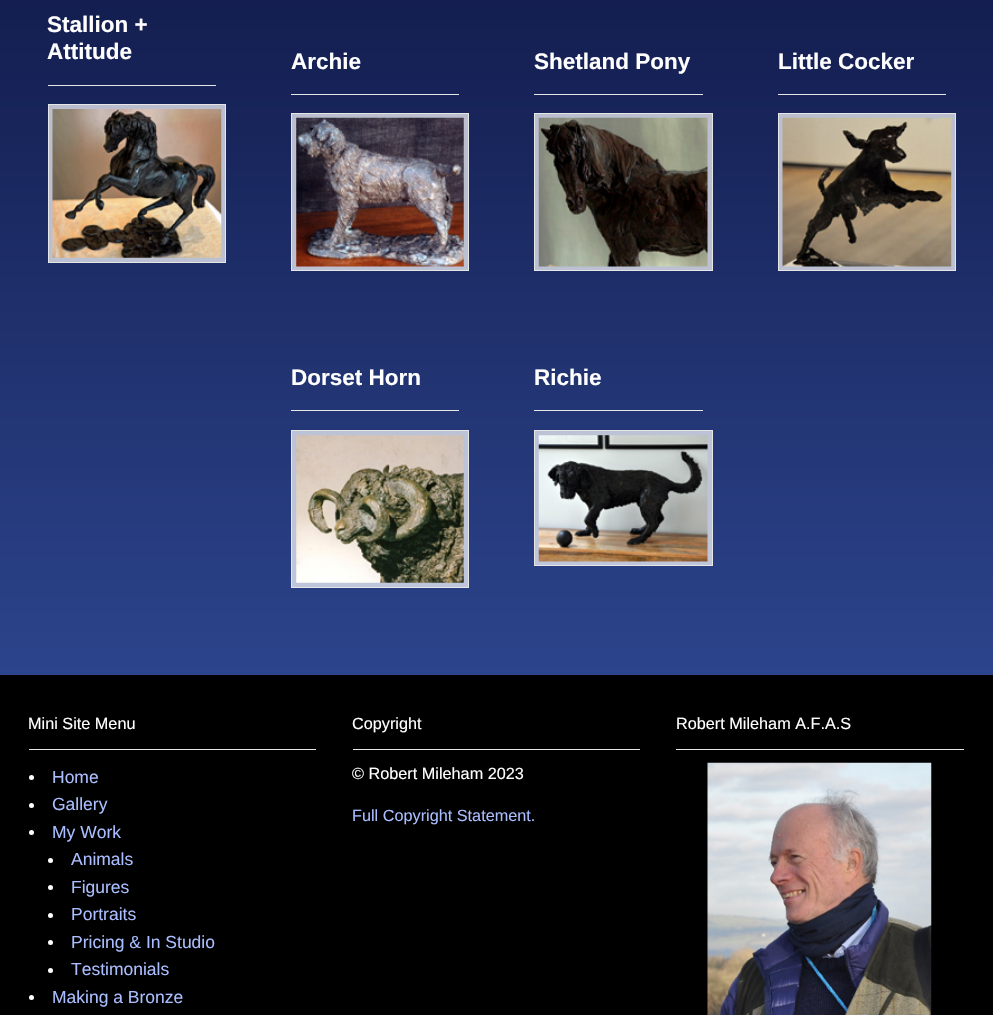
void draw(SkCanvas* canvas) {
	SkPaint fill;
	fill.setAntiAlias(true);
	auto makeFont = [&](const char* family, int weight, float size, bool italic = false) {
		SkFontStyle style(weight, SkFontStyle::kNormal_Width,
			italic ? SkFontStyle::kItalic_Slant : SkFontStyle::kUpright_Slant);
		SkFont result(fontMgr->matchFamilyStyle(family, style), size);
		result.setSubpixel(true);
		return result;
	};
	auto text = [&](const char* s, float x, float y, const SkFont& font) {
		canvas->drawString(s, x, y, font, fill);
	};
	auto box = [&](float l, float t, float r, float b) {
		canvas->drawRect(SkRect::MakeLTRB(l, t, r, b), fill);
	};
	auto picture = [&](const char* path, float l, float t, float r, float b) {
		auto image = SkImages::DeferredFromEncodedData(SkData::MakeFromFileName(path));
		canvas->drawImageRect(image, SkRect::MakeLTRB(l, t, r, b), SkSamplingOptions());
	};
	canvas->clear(0xFF000000);
	{
		const SkColor colors[] = {0xFF030427, 0xFF2C448C};
		const float stops[] = {0, 1};
		const SkPoint ends[] = {{497, -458}, {497, 675}};
		fill.setShader(SkGradientShader::MakeLinear(ends, colors, stops, 2, SkTileMode::kClamp));
		fill.setAlpha(255);
	}
	box(0, 0, 993, 675);
	{
		const SkColor colors[] = {0xFFB3B4BE, 0xFFC0C7DD};
		const float stops[] = {0, 1};
		const SkPoint ends[] = {{497, -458}, {497, 675}};
		fill.setShader(SkGradientShader::MakeLinear(ends, colors, stops, 2, SkTileMode::kClamp));
		fill.setAlpha(255);
	}
	box(779, 114, 955, 270);
	box(535, 431, 712, 565);
	box(535, 114, 712, 270);
	box(292, 431, 468, 587);
	box(292, 114, 468, 270);
	box(49, 105, 225, 262);
	fill.setShader(nullptr);
	fill.setColor(0xFFE6E6E6);
	box(48, 85, 216, 86);
	fill.setStyle(SkPaint::kStroke_Style);
	fill.setStrokeWidth(1);
	canvas->drawRect(SkRect::MakeLTRB(48.5f, 104.5f, 225.5f, 262.5f), fill);
	picture("image0.png", 52, 109, 222, 258);
	fill.setStyle(SkPaint::kFill_Style);
	box(291, 94, 459, 95);
	fill.setStyle(SkPaint::kStroke_Style);
	canvas->drawRect(SkRect::MakeLTRB(291.5f, 113.5f, 468.5f, 270.5f), fill);
	picture("image1.png", 296, 117, 464, 267);
	fill.setStyle(SkPaint::kFill_Style);
	box(291, 410, 459, 411);
	fill.setStyle(SkPaint::kStroke_Style);
	canvas->drawRect(SkRect::MakeLTRB(291.5f, 430.5f, 468.5f, 587.5f), fill);
	picture("image2.png", 296, 435, 464, 583);
	fill.setStyle(SkPaint::kFill_Style);
	box(534, 94, 703, 95);
	fill.setStyle(SkPaint::kStroke_Style);
	canvas->drawRect(SkRect::MakeLTRB(534.5f, 113.5f, 712.5f, 270.5f), fill);
	picture("image3.png", 538, 117, 708, 267);
	fill.setStyle(SkPaint::kFill_Style);
	box(534, 410, 703, 411);
	fill.setStyle(SkPaint::kStroke_Style);
	canvas->drawRect(SkRect::MakeLTRB(534.5f, 430.5f, 712.5f, 565.5f), fill);
	picture("image4.png", 538, 435, 708, 562);
	fill.setStyle(SkPaint::kFill_Style);
	box(778, 94, 946, 95);
	fill.setStyle(SkPaint::kStroke_Style);
	canvas->drawRect(SkRect::MakeLTRB(778.5f, 113.5f, 955.5f, 270.5f), fill);
	picture("image5.png", 782, 117, 952, 267);
	fill.setStyle(SkPaint::kFill_Style);
	box(29, 749, 316, 750);
	fill.setColor(0xFFFFFFFF);
	canvas->drawCircle(31.5f, 777.5f, 2.5f, fill);
	canvas->drawCircle(31.5f, 805.5f, 2.5f, fill);
	canvas->drawCircle(31.5f, 832.5f, 2.5f, fill);
	canvas->drawCircle(50.5f, 860.5f, 2.5f, fill);
	canvas->drawCircle(50.5f, 887.5f, 2.5f, fill);
	canvas->drawCircle(50.5f, 915.5f, 2.5f, fill);
	canvas->drawCircle(50.5f, 942.5f, 2.5f, fill);
	canvas->drawCircle(50.5f, 970.5f, 2.5f, fill);
	canvas->drawCircle(31.5f, 997.5f, 2.5f, fill);
	fill.setColor(0xFFE6E6E6);
	box(353, 749, 640, 750);
	box(676, 749, 964, 750);
	picture("image6.png", 707, 762, 932, 1015);
	auto font1 = makeFont("Liberation Sans", 700, 22.5f);
	fill.setColor(0xFFFFFFFF);
	text("Stallion +", 47, 32, font1);
	text("Attitude", 47, 59, font1);
	text("Archie", 291, 69, font1);
	text("Dorset Horn", 291, 385, font1);
	text("Shetland Pony", 534, 69, font1);
	text("Richie", 534, 385, font1);
	text("Little Cocker", 778, 69, font1);
	auto font2 = makeFont("Liberation Sans", 400, 16.25f);
	text("Mini Site Menu", 28, 729, font2);
	auto font3 = makeFont("Liberation Sans", 400, 17.5f);
	fill.setColor(0xFFAABEFF);
	text("Home", 52, 783, font3);
	text("Gallery", 52, 810, font3);
	text("My Work", 52, 838, font3);
	text("Animals", 71, 865, font3);
	text("Figures", 71, 893, font3);
	text("Portraits", 71, 920, font3);
	text("Pricing & In Studio", 71, 948, font3);
	text("Testimonials", 71, 975, font3);
	text("Making a Bronze", 52, 1003, font3);
	fill.setColor(0xFFFFFFFF);
	text("Copyright", 352, 729, font2);
	text("© Robert Mileham 2023", 352, 779, font2);
	fill.setColor(0xFFAABEFF);
	text("Full Copyright Statement.", 352, 821, font2);
	fill.setColor(0xFFFFFFFF);
	text("Robert Mileham A.F.A.S", 676, 729, font2);
}
